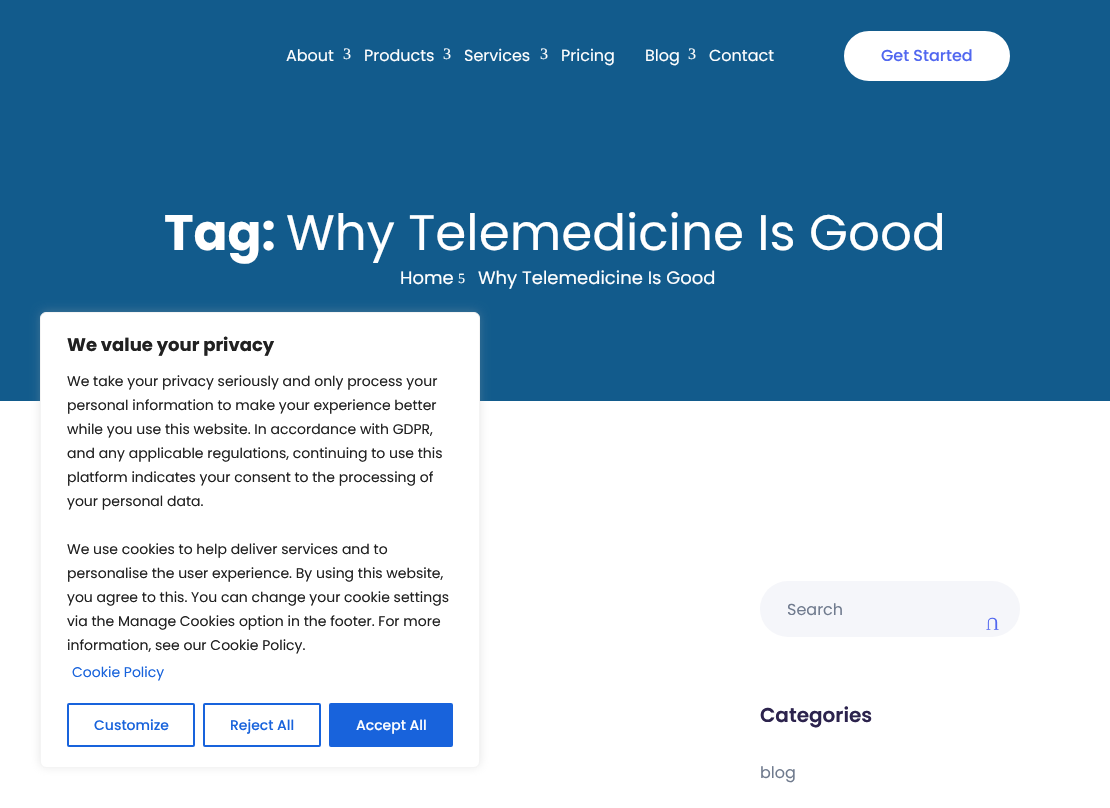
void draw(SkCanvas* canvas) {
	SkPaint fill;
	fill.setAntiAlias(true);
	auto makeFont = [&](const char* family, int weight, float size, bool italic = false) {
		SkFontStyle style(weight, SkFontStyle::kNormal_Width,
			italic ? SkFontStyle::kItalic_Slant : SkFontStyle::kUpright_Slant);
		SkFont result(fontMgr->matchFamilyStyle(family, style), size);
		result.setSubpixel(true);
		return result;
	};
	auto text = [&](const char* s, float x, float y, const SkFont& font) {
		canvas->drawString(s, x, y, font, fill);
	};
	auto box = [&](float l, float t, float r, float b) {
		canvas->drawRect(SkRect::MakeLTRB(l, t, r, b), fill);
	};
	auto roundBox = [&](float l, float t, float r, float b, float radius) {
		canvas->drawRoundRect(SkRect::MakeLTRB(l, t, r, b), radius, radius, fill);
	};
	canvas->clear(0xFFFFFFFF);
	fill.setColor(0xFF125B8C);
	box(0, 0, 1110, 401);
	fill.setColor(0xFFFFFFFF);
	canvas->drawRoundRect(SkRect::MakeLTRB(845, 32, 1009, 80), 24, 24, fill);
	fill.setStyle(SkPaint::kStroke_Style);
	fill.setStrokeWidth(2);
	canvas->drawRoundRect(SkRect::MakeLTRB(845, 32, 1009, 80), 24, 24, fill);
	fill.setStyle(SkPaint::kFill_Style);
	fill.setColor(0x4DACABAB);
	fill.setMaskFilter(SkMaskFilter::MakeBlur(kNormal_SkBlurStyle, 5));
	canvas->drawRoundRect(SkRect::MakeLTRB(40, 311, 480, 767), 6, 6, fill);
	fill.setMaskFilter(nullptr);
	fill.setColor(0xFFFFFFFF);
	canvas->drawRoundRect(SkRect::MakeLTRB(40.5f, 312.5f, 479.5f, 767.5f), 5.5f, 5.5f, fill);
	fill.setStyle(SkPaint::kStroke_Style);
	fill.setStrokeWidth(1);
	fill.setColor(0xFFF4F4F4);
	canvas->drawRoundRect(SkRect::MakeLTRB(40.5f, 312.5f, 479.5f, 767.5f), 5.5f, 5.5f, fill);
	fill.setStrokeWidth(2);
	fill.setColor(0xFF1863DC);
	canvas->drawRoundRect(SkRect::MakeLTRB(68, 704, 194, 746), 1, 1, fill);
	canvas->drawRoundRect(SkRect::MakeLTRB(204, 704, 320, 746), 1, 1, fill);
	fill.setStyle(SkPaint::kFill_Style);
	canvas->drawRoundRect(SkRect::MakeLTRB(330, 704, 452, 746), 1, 1, fill);
	fill.setStyle(SkPaint::kStroke_Style);
	canvas->drawRoundRect(SkRect::MakeLTRB(330, 704, 452, 746), 1, 1, fill);
	fill.setStyle(SkPaint::kFill_Style);
	fill.setColor(0xFFF5F6FA);
	roundBox(760, 581, 1020, 637, 28);
	auto font1 = makeFont("Poppins", 400, 16);
	fill.setColor(0xFFFFFFFF);
	text("About", 286, 61, font1);
	auto font2 = makeFont("Liberation Serif", 400, 16);
	text("3", 343, 59, font2);
	text("Products", 364, 61, font1);
	text("3", 443, 59, font2);
	text("Services", 464, 61, font1);
	text("3", 540, 59, font2);
	text("Pricing", 561, 61, font1);
	text("Blog", 645, 61, font1);
	text("3", 688, 59, font2);
	text("Contact", 709, 61, font1);
	auto font3 = makeFont("Poppins", 500, 16);
	fill.setColor(0xFF5167F0);
	text("Get Started", 881, 61, font3);
	auto font4 = makeFont("Poppins", 700, 50);
	fill.setColor(0xFFFFFFFF);
	text("Tag:", 164, 250, font4);
	auto font5 = makeFont("Poppins", 400, 50);
	text("Why Telemedicine Is Good", 286, 250, font5);
	auto font6 = makeFont("Poppins", 400, 18);
	text("Home", 400, 284, font6);
	auto font7 = makeFont("Liberation Serif", 400, 14);
	text("5", 458, 283, font7);
	text("Why Telemedicine Is Good", 478, 284, font6);
	auto font8 = makeFont("Poppins", 700, 18);
	fill.setColor(0xFF212121);
	text("We value your privacy", 67, 351, font8);
	auto font9 = makeFont("Poppins", 400, 14);
	text("We take your privacy seriously and only process your", 67, 386, font9);
	text("personal information to make your experience better", 67, 410, font9);
	text("while you use this website. In accordance with GDPR,", 67, 434, font9);
	text("and any applicable regulations, continuing to use this", 67, 458, font9);
	text("platform indicates your consent to the processing of", 67, 482, font9);
	text("your personal data.", 67, 506, font9);
	text("We use cookies to help deliver services and to", 67, 554, font9);
	text("personalise the user experience. By using this website,", 67, 578, font9);
	text("you agree to this. You can change your cookie settings", 67, 602, font9);
	text("via the Manage Cookies option in the footer. For more", 67, 626, font9);
	text("information, see our Cookie Policy.", 67, 650, font9);
	fill.setColor(0xFF1863DC);
	text("Cookie Policy", 72, 677, font9);
	auto font10 = makeFont("Poppins", 500, 14);
	text("Customize", 94, 730, font10);
	text("Reject All", 230, 730, font10);
	fill.setColor(0xFFFFFFFF);
	text("Accept All", 356, 730, font10);
	fill.setColor(0xFF707B8E);
	text("Search", 787, 615, font1);
	auto font11 = makeFont("Liberation Serif", 400, 18);
	fill.setColor(0xFF5167F0);
	canvas->save();
	canvas->rotate(180, 999, 618);
	text("U", 999, 618, font11);
	canvas->restore();
	auto font12 = makeFont("Poppins", 600, 20);
	fill.setColor(0xFF2C234D);
	text("Categories", 760, 722, font12);
	fill.setColor(0xFF707B8E);
	text("blog", 760, 778, font1);
}
